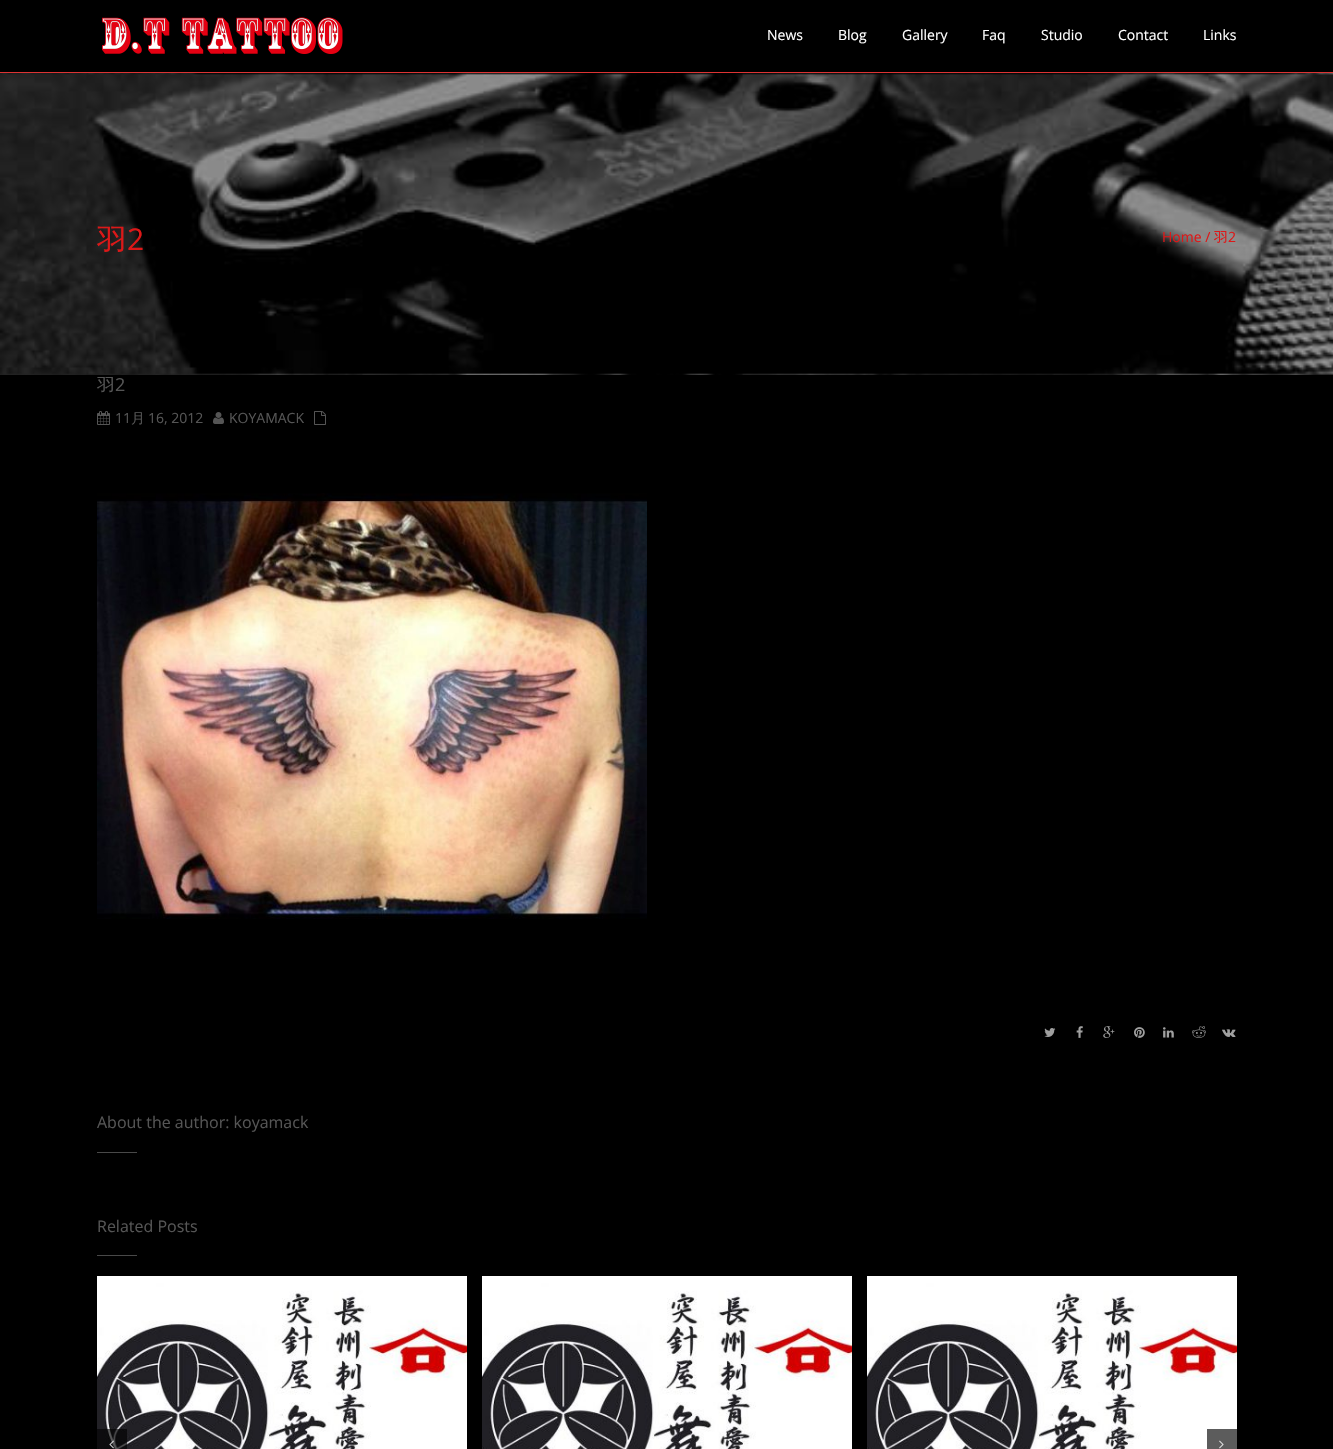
void draw(SkCanvas* canvas) {
	SkPaint fill;
	fill.setAntiAlias(true);
	auto makeFont = [&](const char* family, int weight, float size, bool italic = false) {
		SkFontStyle style(weight, SkFontStyle::kNormal_Width,
			italic ? SkFontStyle::kItalic_Slant : SkFontStyle::kUpright_Slant);
		SkFont result(fontMgr->matchFamilyStyle(family, style), size);
		result.setSubpixel(true);
		return result;
	};
	auto text = [&](const char* s, float x, float y, const SkFont& font) {
		canvas->drawString(s, x, y, font, fill);
	};
	auto box = [&](float l, float t, float r, float b) {
		canvas->drawRect(SkRect::MakeLTRB(l, t, r, b), fill);
	};
	auto picture = [&](const char* path, float l, float t, float r, float b) {
		auto image = SkImages::DeferredFromEncodedData(SkData::MakeFromFileName(path));
		canvas->drawImageRect(image, SkRect::MakeLTRB(l, t, r, b), SkSamplingOptions());
	};
	canvas->clear(0xFF000000);
	fill.setColor(0xFFDD3333);
	box(0, 72, 1333, 73);
	picture("image0.png", 102, 17, 343, 54);
	picture("image1.png", 0, 73, 1333, 375);
	picture("image2.png", 97, 411, 110, 425);
	picture("image3.png", 213, 412, 224, 424);
	picture("image4.png", 314, 411, 326, 425);
	picture("image5.png", 97, 493, 647, 919);
	picture("image6.png", 1044, 1028, 1056, 1037);
	picture("image7.png", 1076, 1026, 1083, 1038);
	picture("image8.png", 1103, 1026, 1115, 1038);
	picture("image9.png", 1134, 1027, 1145, 1038);
	picture("image10.png", 1163, 1027, 1174, 1038);
	picture("image11.png", 1192, 1026, 1206, 1038);
	picture("image12.png", 1222, 1029, 1236, 1037);
	fill.setColor(0xFF494949);
	box(97, 1152, 137, 1153);
	box(97, 1255, 137, 1256);
	picture("image13.png", 97, 1276, 467, 1449);
	picture("image14.png", 482, 1276, 852, 1449);
	picture("image13.png", 867, 1276, 1237, 1449);
	fill.setColor(0xA3000000);
	box(97, 1429, 127, 1449);
	picture("image15.png", 109, 1440, 114, 1449);
	fill.setColor(0xFF5C5C5C);
	box(1207, 1429, 1237, 1449);
	picture("image16.png", 1219, 1440, 1224, 1449);
	auto font1 = makeFont("Open Sans", 400, 14);
	fill.setColor(0xFFFFFFFF);
	text("News", 767, 40, font1);
	text("Blog", 838, 40, font1);
	text("Gallery", 902, 40, font1);
	text("Faq", 982, 40, font1);
	text("Studio", 1041, 40, font1);
	text("Contact", 1118, 40, font1);
	text("Links", 1203, 40, font1);
	auto font2 = makeFont("WenQuanYi Zen Hei", 500, 30);
	fill.setColor(0xFFDD1818);
	text("羽", 97, 250, font2);
	auto font3 = makeFont("Open Sans", 400, 30);
	text("2", 127, 250, font3);
	text("Home /", 1162, 242, font1);
	auto font4 = makeFont("WenQuanYi Zen Hei", 500, 14);
	text("羽", 1214, 242, font4);
	text("2", 1228, 242, font1);
	auto font5 = makeFont("WenQuanYi Zen Hei", 500, 18);
	fill.setColor(0xFF555555);
	text("羽", 97, 391, font5);
	auto font6 = makeFont("Open Sans", 400, 18);
	text("2", 115, 391, font6);
	text("11", 115, 423, font1);
	text("月", 131, 423, font4);
	text("16, 2012", 148, 423, font1);
	text("KOYAMACK", 229, 423, font1);
	auto font7 = makeFont("Open Sans", 400, 16);
	text("About the author: koyamack", 97, 1128, font7);
	text("Related Posts", 97, 1232, font7);
}
